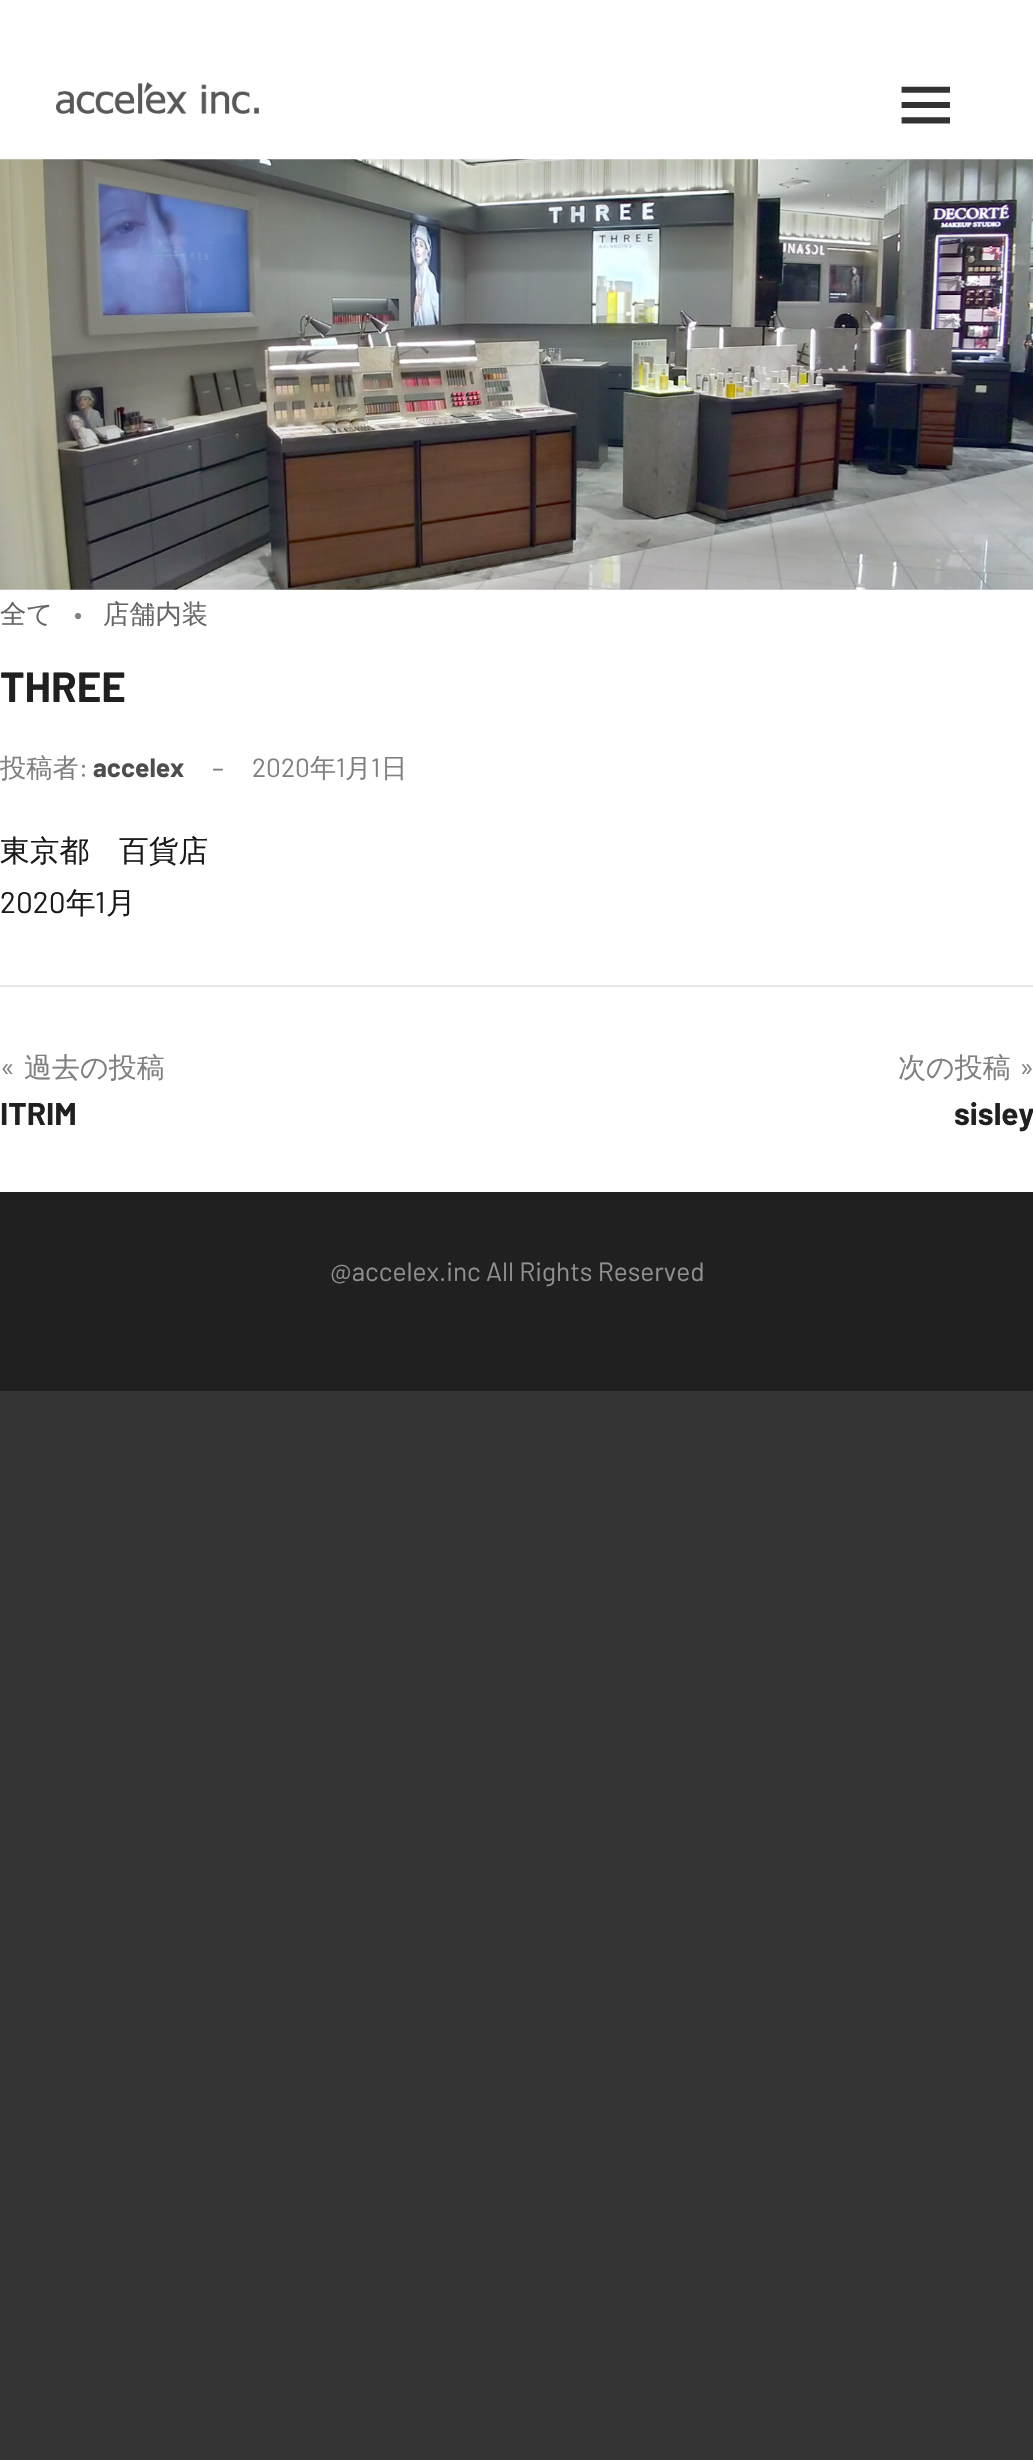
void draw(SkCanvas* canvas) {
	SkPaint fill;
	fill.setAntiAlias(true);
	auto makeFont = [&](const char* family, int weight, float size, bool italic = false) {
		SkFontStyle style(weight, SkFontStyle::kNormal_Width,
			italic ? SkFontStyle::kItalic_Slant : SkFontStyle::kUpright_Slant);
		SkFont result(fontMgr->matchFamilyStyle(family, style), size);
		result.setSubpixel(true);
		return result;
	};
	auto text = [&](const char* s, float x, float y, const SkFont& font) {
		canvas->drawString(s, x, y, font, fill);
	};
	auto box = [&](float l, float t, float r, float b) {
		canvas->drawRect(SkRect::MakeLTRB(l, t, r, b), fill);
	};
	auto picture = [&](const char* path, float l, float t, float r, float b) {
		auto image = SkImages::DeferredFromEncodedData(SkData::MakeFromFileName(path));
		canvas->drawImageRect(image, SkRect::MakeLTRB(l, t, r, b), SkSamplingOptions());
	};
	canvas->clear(0xFF353535);
	fill.setColor(0xFFFFFFFF);
	box(0, 0, 1033, 1192);
	picture("image0.png", 56, 82, 259, 114);
	picture("image1.png", 901, 86, 950, 124);
	picture("image2.png", 0, 159, 1033, 590);
	fill.setColor(0xFFE6E6E6);
	box(0, 985, 1033, 987);
	fill.setColor(0xFF202020);
	box(0, 1192, 1033, 1391);
	auto font1 = makeFont("WenQuanYi Zen Hei", 500, 26.25f);
	fill.setColor(0xFF666666);
	text("全て", 0, 623, font1);
	auto font2 = makeFont("Barlow", 400, 26.25f);
	fill.setColor(0xFF808080);
	text("•", 74, 623, font2);
	fill.setColor(0xFF666666);
	text("店舗内装", 103, 623, font1);
	auto font3 = makeFont("Barlow", 700, 42);
	fill.setColor(0xFF202020);
	text("THREE", 0, 702, font3);
	fill.setColor(0xFF808080);
	text("投稿者", 0, 777, font1);
	text(":", 79, 777, font2);
	auto font4 = makeFont("Barlow", 700, 26.25f);
	fill.setColor(0xFF4D4D4D);
	text("accelex", 93, 777, font4);
	fill.setColor(0xFF808080);
	text("–", 212, 777, font2);
	text("2020", 252, 777, font2);
	text("年", 310, 777, font1);
	text("1", 336, 777, font2);
	text("月", 345, 777, font1);
	text("1", 371, 777, font2);
	text("日", 381, 777, font1);
	auto font5 = makeFont("WenQuanYi Zen Hei", 500, 29.75f);
	fill.setColor(0xFF1A1A1A);
	text("東京都　百貨店", 0, 861, font5);
	auto font6 = makeFont("Barlow", 400, 29.75f);
	text("2020", 0, 913, font6);
	text("年", 66, 913, font5);
	text("1", 95, 913, font6);
	text("月", 106, 913, font5);
	auto font7 = makeFont("Barlow", 400, 28);
	fill.setColor(0xFF808080);
	text("«", 0, 1077, font7);
	auto font8 = makeFont("WenQuanYi Zen Hei", 500, 28);
	text("過去の投稿", 24, 1077, font8);
	auto font9 = makeFont("Barlow", 700, 31.5f);
	fill.setColor(0xFF202020);
	text("ITRIM", 0, 1125, font9);
	fill.setColor(0xFF808080);
	text("次の投稿", 898, 1077, font8);
	text("»", 1019, 1077, font7);
	fill.setColor(0xFF202020);
	text("sisley", 954, 1125, font9);
	fill.setColor(0xFF909090);
	text("@accelex.inc All Rights Reserved", 330, 1281, font2);
}
